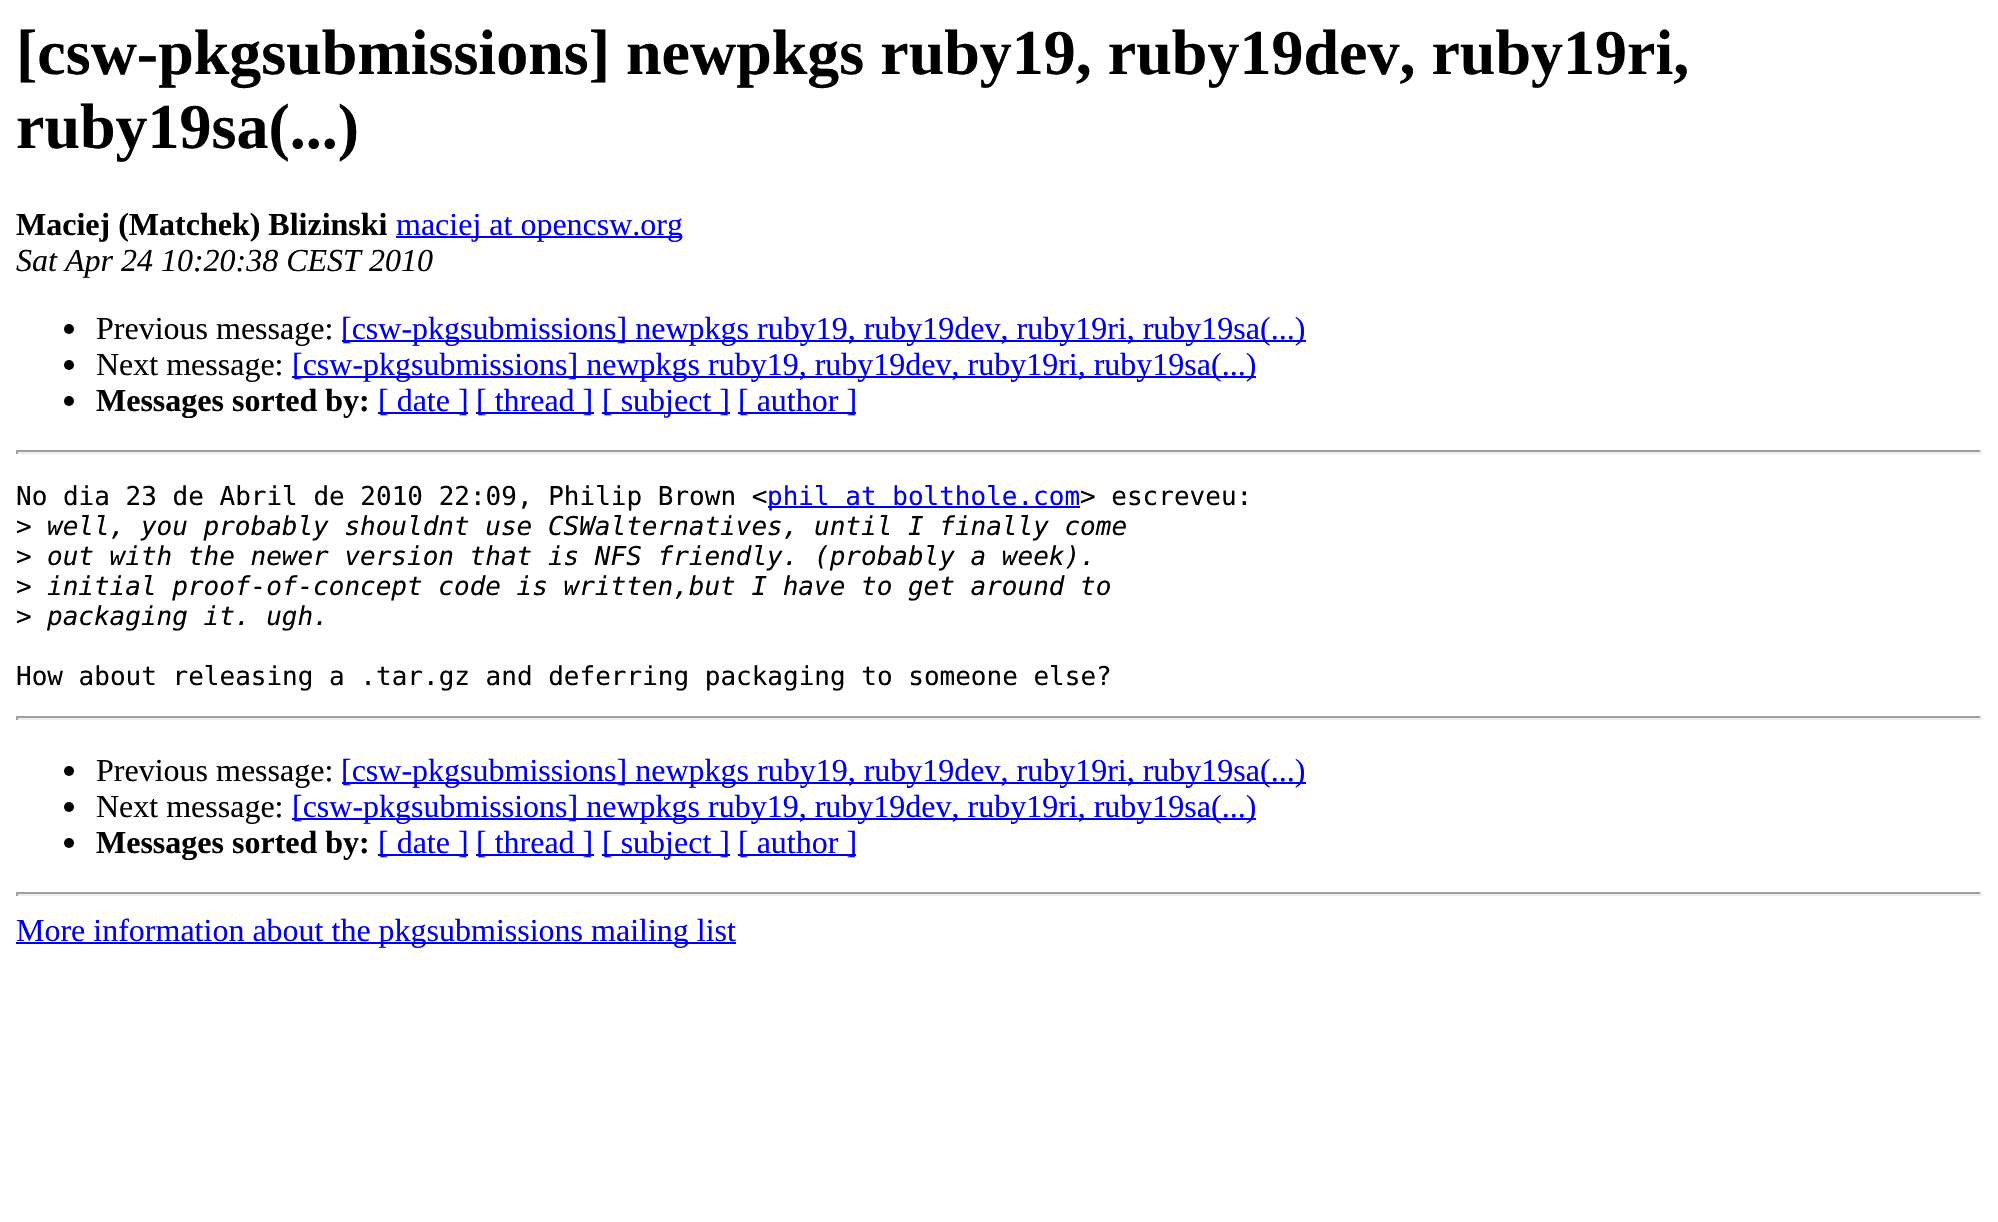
void draw(SkCanvas* canvas) {
	SkPaint fill;
	fill.setAntiAlias(true);
	auto makeFont = [&](const char* family, int weight, float size, bool italic = false) {
		SkFontStyle style(weight, SkFontStyle::kNormal_Width,
			italic ? SkFontStyle::kItalic_Slant : SkFontStyle::kUpright_Slant);
		SkFont result(fontMgr->matchFamilyStyle(family, style), size);
		result.setSubpixel(true);
		return result;
	};
	auto text = [&](const char* s, float x, float y, const SkFont& font) {
		canvas->drawString(s, x, y, font, fill);
	};
	auto box = [&](float l, float t, float r, float b) {
		canvas->drawRect(SkRect::MakeLTRB(l, t, r, b), fill);
	};
	canvas->clear(0xFFFFFFFF);
	fill.setColor(0xFF0000EE);
	box(396, 236, 682, 238);
	fill.setColor(0xFF000000);
	canvas->drawCircle(69, 329, 5, fill);
	fill.setColor(0xFF0000EE);
	box(342, 340, 1306, 342);
	fill.setColor(0xFF000000);
	canvas->drawCircle(69, 365, 5, fill);
	fill.setColor(0xFF0000EE);
	box(292, 376, 1256, 378);
	fill.setColor(0xFF000000);
	canvas->drawCircle(69, 401, 5, fill);
	fill.setColor(0xFF0000EE);
	box(378, 412, 468, 414);
	box(476, 412, 594, 414);
	box(602, 412, 730, 414);
	box(738, 412, 856, 414);
	fill.setColor(0xFF9F9F9F);
	box(16, 450, 1982, 452);
	fill.setColor(0xFFEEEEEE);
	box(1980, 450, 1982, 454);
	box(16, 452, 1982, 454);
	fill.setColor(0xFF9F9F9F);
	box(16, 450, 18, 454);
	fill.setColor(0xFF0000EE);
	box(768, 506, 1080, 508);
	fill.setColor(0xFF9F9F9F);
	box(16, 716, 1982, 718);
	fill.setColor(0xFFEEEEEE);
	box(1980, 716, 1982, 720);
	box(16, 718, 1982, 720);
	fill.setColor(0xFF9F9F9F);
	box(16, 716, 18, 720);
	fill.setColor(0xFF000000);
	canvas->drawCircle(69, 771, 5, fill);
	fill.setColor(0xFF0000EE);
	box(342, 782, 1306, 784);
	fill.setColor(0xFF000000);
	canvas->drawCircle(69, 807, 5, fill);
	fill.setColor(0xFF0000EE);
	box(292, 818, 1256, 820);
	fill.setColor(0xFF000000);
	canvas->drawCircle(69, 843, 5, fill);
	fill.setColor(0xFF0000EE);
	box(378, 854, 468, 856);
	box(476, 854, 594, 856);
	box(602, 854, 730, 856);
	box(738, 854, 856, 856);
	fill.setColor(0xFF9F9F9F);
	box(16, 892, 1982, 894);
	fill.setColor(0xFFEEEEEE);
	box(1980, 892, 1982, 896);
	box(16, 894, 1982, 896);
	fill.setColor(0xFF9F9F9F);
	box(16, 892, 18, 896);
	fill.setColor(0xFF0000EE);
	box(16, 942, 736, 944);
	auto font1 = makeFont("Liberation Serif", 700, 64);
	fill.setColor(0xFF000000);
	text("[csw-pkgsubmissions] newpkgs ruby19, ruby19dev, ruby19ri,", 16, 74, font1);
	text("ruby19sa(...)", 16, 148, font1);
	auto font2 = makeFont("Liberation Serif", 700, 32);
	text("Maciej (Matchek) Blizinski", 16, 235, font2);
	auto font3 = makeFont("Liberation Serif", 400, 32);
	fill.setColor(0xFF0000EE);
	text("maciej at opencsw.org", 396, 235, font3);
	auto font4 = makeFont("Liberation Serif", 400, 32, true);
	fill.setColor(0xFF000000);
	text("Sat Apr 24 10:20:38 CEST 2010", 16, 271, font4);
	text("Previous message:", 96, 339, font3);
	fill.setColor(0xFF0000EE);
	text("[csw-pkgsubmissions] newpkgs ruby19, ruby19dev, ruby19ri, ruby19sa(...)", 341, 339, font3);
	fill.setColor(0xFF000000);
	text("Next message:", 96, 375, font3);
	fill.setColor(0xFF0000EE);
	text("[csw-pkgsubmissions] newpkgs ruby19, ruby19dev, ruby19ri, ruby19sa(...)", 292, 375, font3);
	fill.setColor(0xFF000000);
	text("Messages sorted by:", 96, 411, font2);
	fill.setColor(0xFF0000EE);
	text("[ date ]", 378, 411, font3);
	text("[ thread ]", 476, 411, font3);
	text("[ subject ]", 602, 411, font3);
	text("[ author ]", 738, 411, font3);
	auto font5 = makeFont("DejaVu Sans Mono", 400, 26);
	fill.setColor(0xFF000000);
	text("No dia 23 de Abril de 2010 22:09, Philip Brown <", 16, 505, font5);
	fill.setColor(0xFF0000EE);
	text("phil at bolthole.com", 767, 505, font5);
	fill.setColor(0xFF000000);
	text("> escreveu:", 1080, 505, font5);
	text(">", 16, 535, font5);
	auto font6 = makeFont("DejaVu Sans Mono", 400, 26, true);
	text("well, you probably shouldnt use CSWalternatives, until I finally come", 47, 535, font6);
	text(">", 16, 565, font5);
	text("out with the newer version that is NFS friendly. (probably a week).", 47, 565, font6);
	text(">", 16, 595, font5);
	text("initial proof-of-concept code is written,but I have to get around to", 47, 595, font6);
	text(">", 16, 625, font5);
	text("packaging it. ugh.", 47, 625, font6);
	text("How about releasing a .tar.gz and deferring packaging to someone else?", 16, 685, font5);
	text("Previous message:", 96, 781, font3);
	fill.setColor(0xFF0000EE);
	text("[csw-pkgsubmissions] newpkgs ruby19, ruby19dev, ruby19ri, ruby19sa(...)", 341, 781, font3);
	fill.setColor(0xFF000000);
	text("Next message:", 96, 817, font3);
	fill.setColor(0xFF0000EE);
	text("[csw-pkgsubmissions] newpkgs ruby19, ruby19dev, ruby19ri, ruby19sa(...)", 292, 817, font3);
	fill.setColor(0xFF000000);
	text("Messages sorted by:", 96, 853, font2);
	fill.setColor(0xFF0000EE);
	text("[ date ]", 378, 853, font3);
	text("[ thread ]", 476, 853, font3);
	text("[ subject ]", 602, 853, font3);
	text("[ author ]", 738, 853, font3);
	text("More information about the pkgsubmissions mailing list", 16, 941, font3);
}
